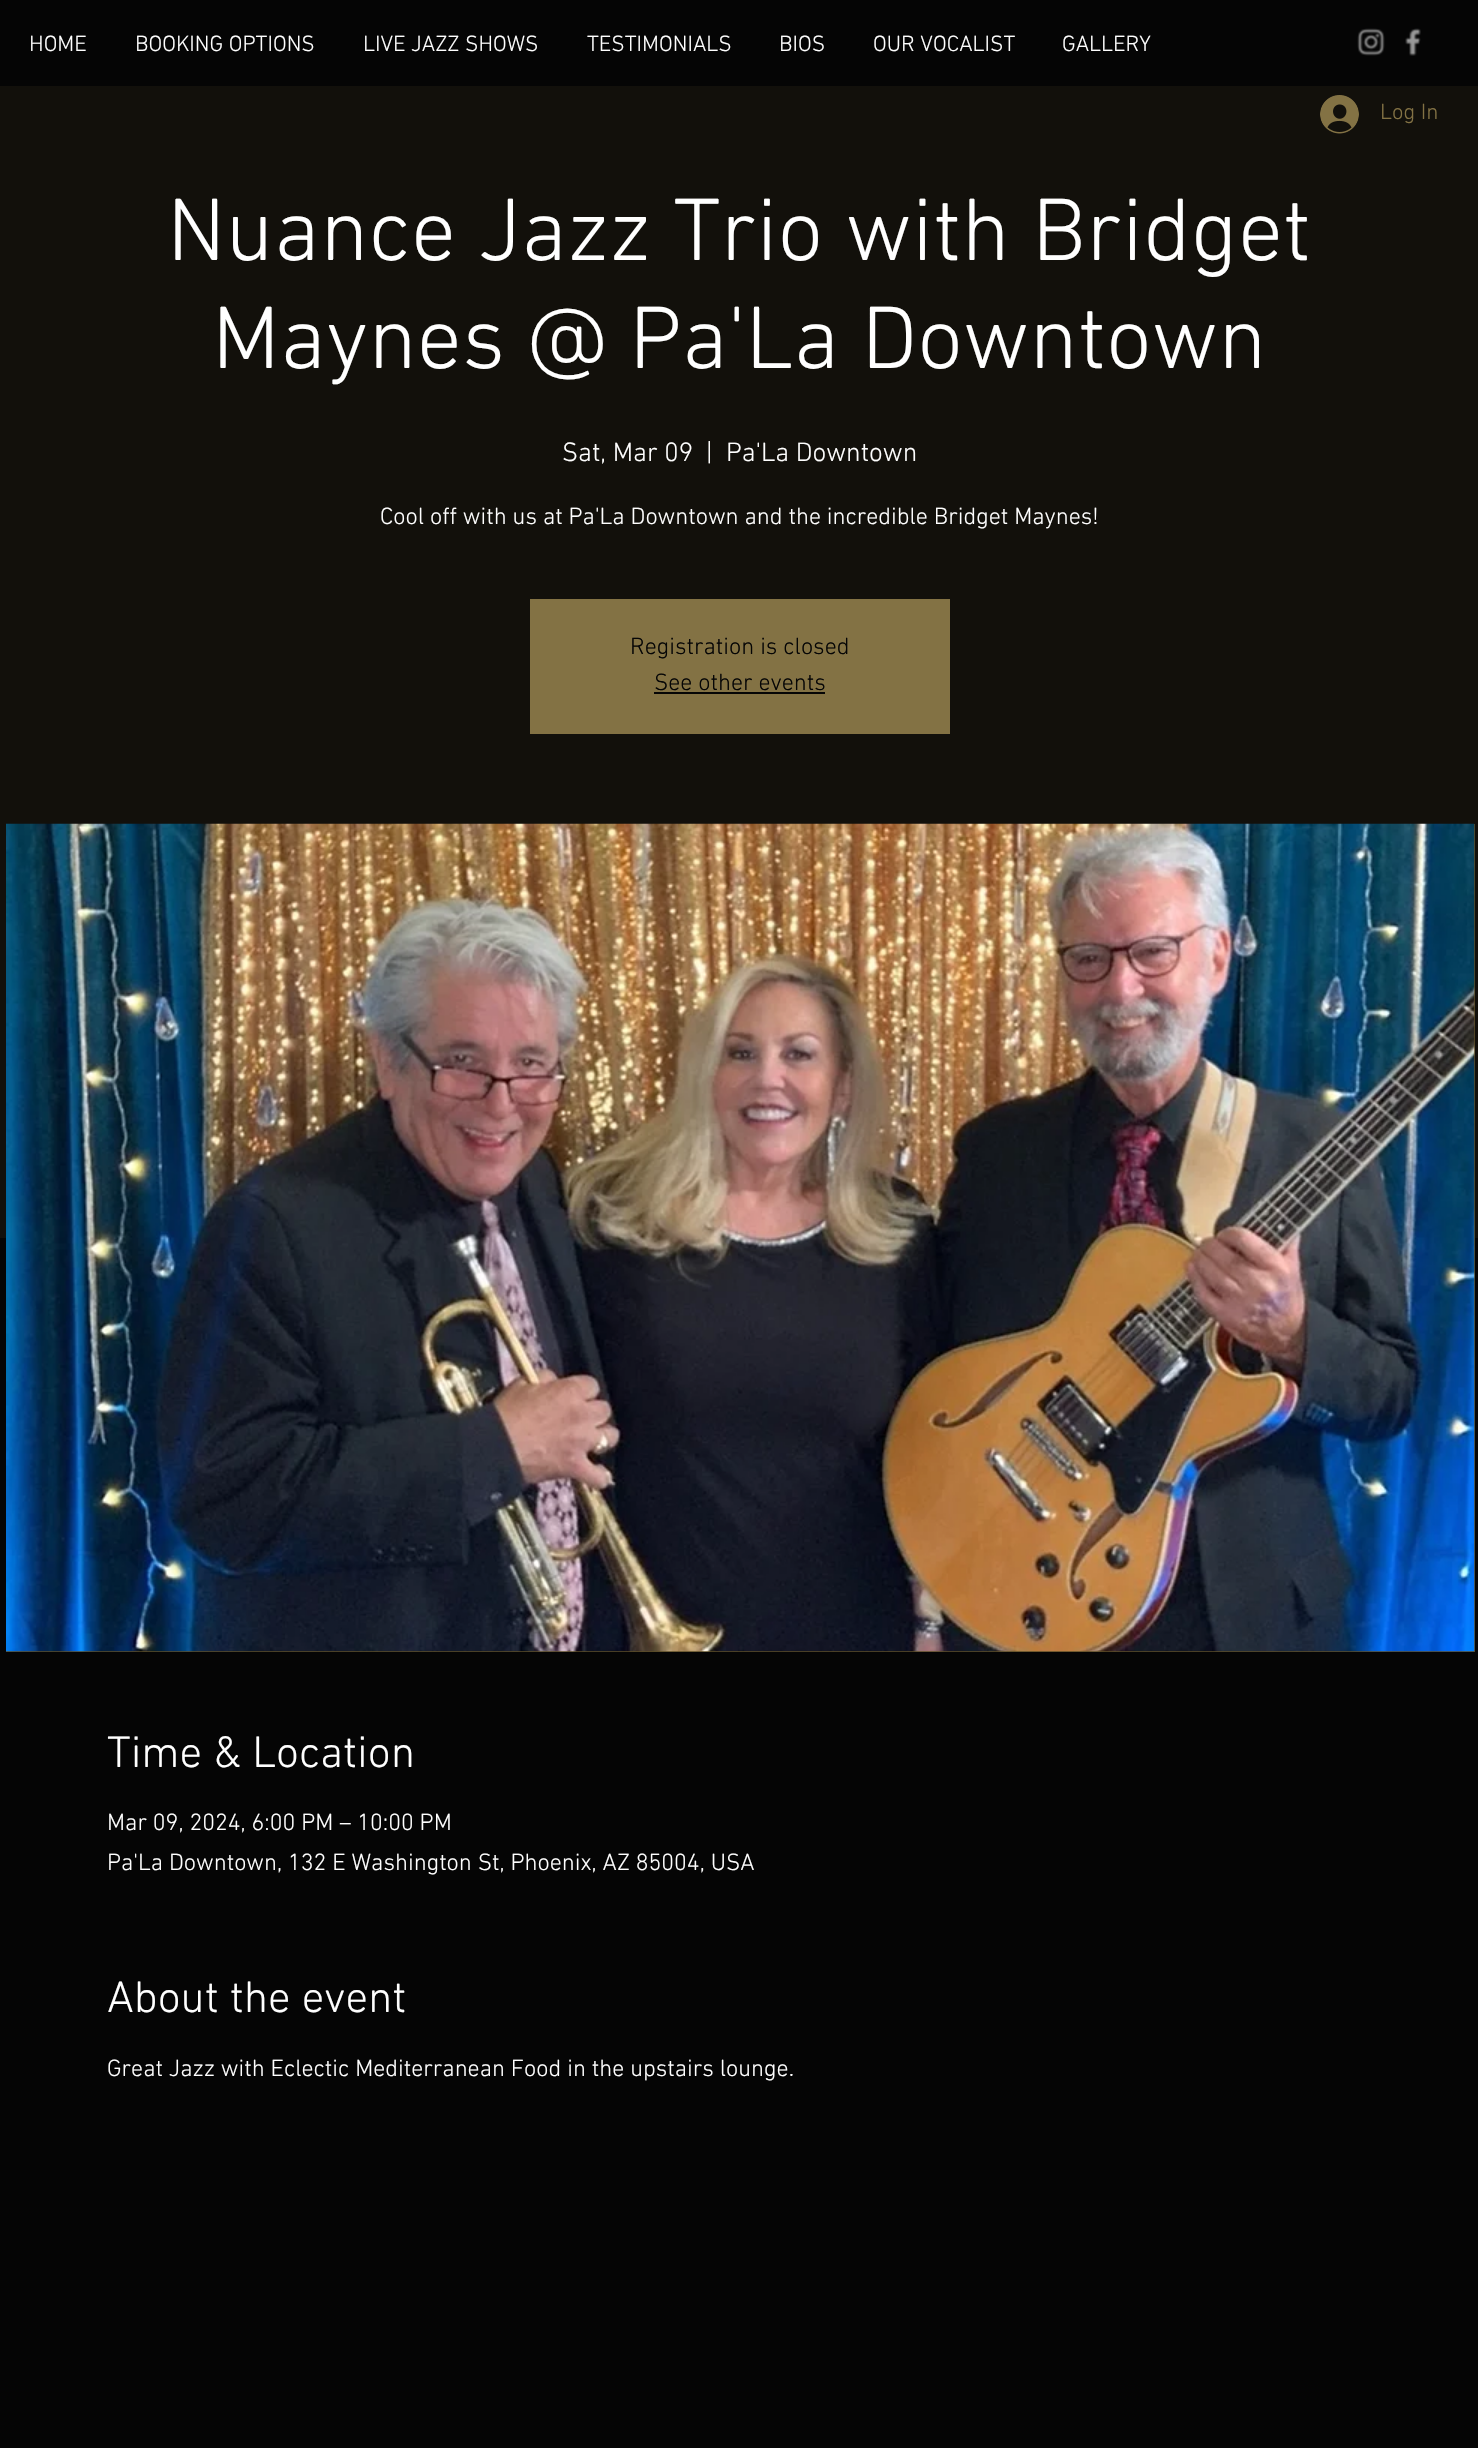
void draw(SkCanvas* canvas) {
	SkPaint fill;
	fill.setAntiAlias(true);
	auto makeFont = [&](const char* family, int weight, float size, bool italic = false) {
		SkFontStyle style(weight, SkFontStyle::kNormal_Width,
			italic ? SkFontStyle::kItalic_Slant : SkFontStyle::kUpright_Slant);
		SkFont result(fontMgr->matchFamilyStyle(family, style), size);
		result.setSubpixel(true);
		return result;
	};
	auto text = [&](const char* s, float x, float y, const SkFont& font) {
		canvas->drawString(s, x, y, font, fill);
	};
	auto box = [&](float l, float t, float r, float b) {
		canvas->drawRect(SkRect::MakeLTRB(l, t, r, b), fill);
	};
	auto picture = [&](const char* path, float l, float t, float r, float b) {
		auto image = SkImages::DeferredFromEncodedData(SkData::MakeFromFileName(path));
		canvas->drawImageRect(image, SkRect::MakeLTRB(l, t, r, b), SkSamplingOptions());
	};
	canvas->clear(0xFF050505);
	picture("image0.png", 1357, 28, 1385, 56);
	picture("image1.png", 1405, 28, 1421, 56);
	fill.setColor(0xFF12100B);
	box(0, 86, 1478, 1238);
	picture("image2.png", 1320, 95, 1359, 134);
	fill.setColor(0xFF837244);
	box(530, 599, 950, 734);
	fill.setColor(0xFF050505);
	box(654, 692, 825, 694);
	fill.setColor(0xFF5C4D26);
	box(6, 824, 1475, 1652);
	picture("image3.png", 6, 823, 1475, 1652);
	auto font1 = makeFont("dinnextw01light", 300, 22.5f);
	fill.setColor(0xFFFFFFFF);
	text("HOME", 29, 51, font1);
	text("BOOKING OPTIONS", 135, 51, font1);
	text("LIVE JAZZ SHOWS", 363, 51, font1);
	text("TESTIMONIALS", 587, 51, font1);
	text("BIOS", 779, 51, font1);
	text("OUR VOCALIST", 873, 51, font1);
	text("GALLERY", 1062, 51, font1);
	fill.setColor(0xFF837244);
	text("Log In", 1380, 119, font1);
	auto font2 = makeFont("dinnextw01light", 300, 90);
	fill.setColor(0xFFFFFFFF);
	text("Nuance Jazz Trio with Bridget", 167, 260, font2);
	text("Maynes @ Pa'La Downtown", 212, 368, font2);
	auto font3 = makeFont("dinnextw01light", 300, 27);
	text("Sat, Mar 09", 562, 461, font3);
	text("|", 706, 461, font3);
	text("Pa'La Downtown", 726, 461, font3);
	auto font4 = makeFont("dinnextw01light", 300, 24);
	text("Cool off with us at Pa'La Downtown and the incredible Bridget Maynes!", 380, 524, font4);
	fill.setColor(0xFF050505);
	text("Registration is closed", 630, 654, font4);
	text("See other events", 654, 690, font4);
	auto font5 = makeFont("dinnextw01light", 300, 45);
	fill.setColor(0xFFFFFFFF);
	text("Time & Location", 107, 1767, font5);
	text("Mar 09, 2024, 6:00 PM – 10:00 PM", 107, 1830, font4);
	text("Pa'La Downtown, 132 E Washington St, Phoenix, AZ 85004, USA", 107, 1870, font4);
	text("About the event", 107, 2012, font5);
	text("Great Jazz with Eclectic Mediterranean Food in the upstairs lounge.", 107, 2076, font4);
}
